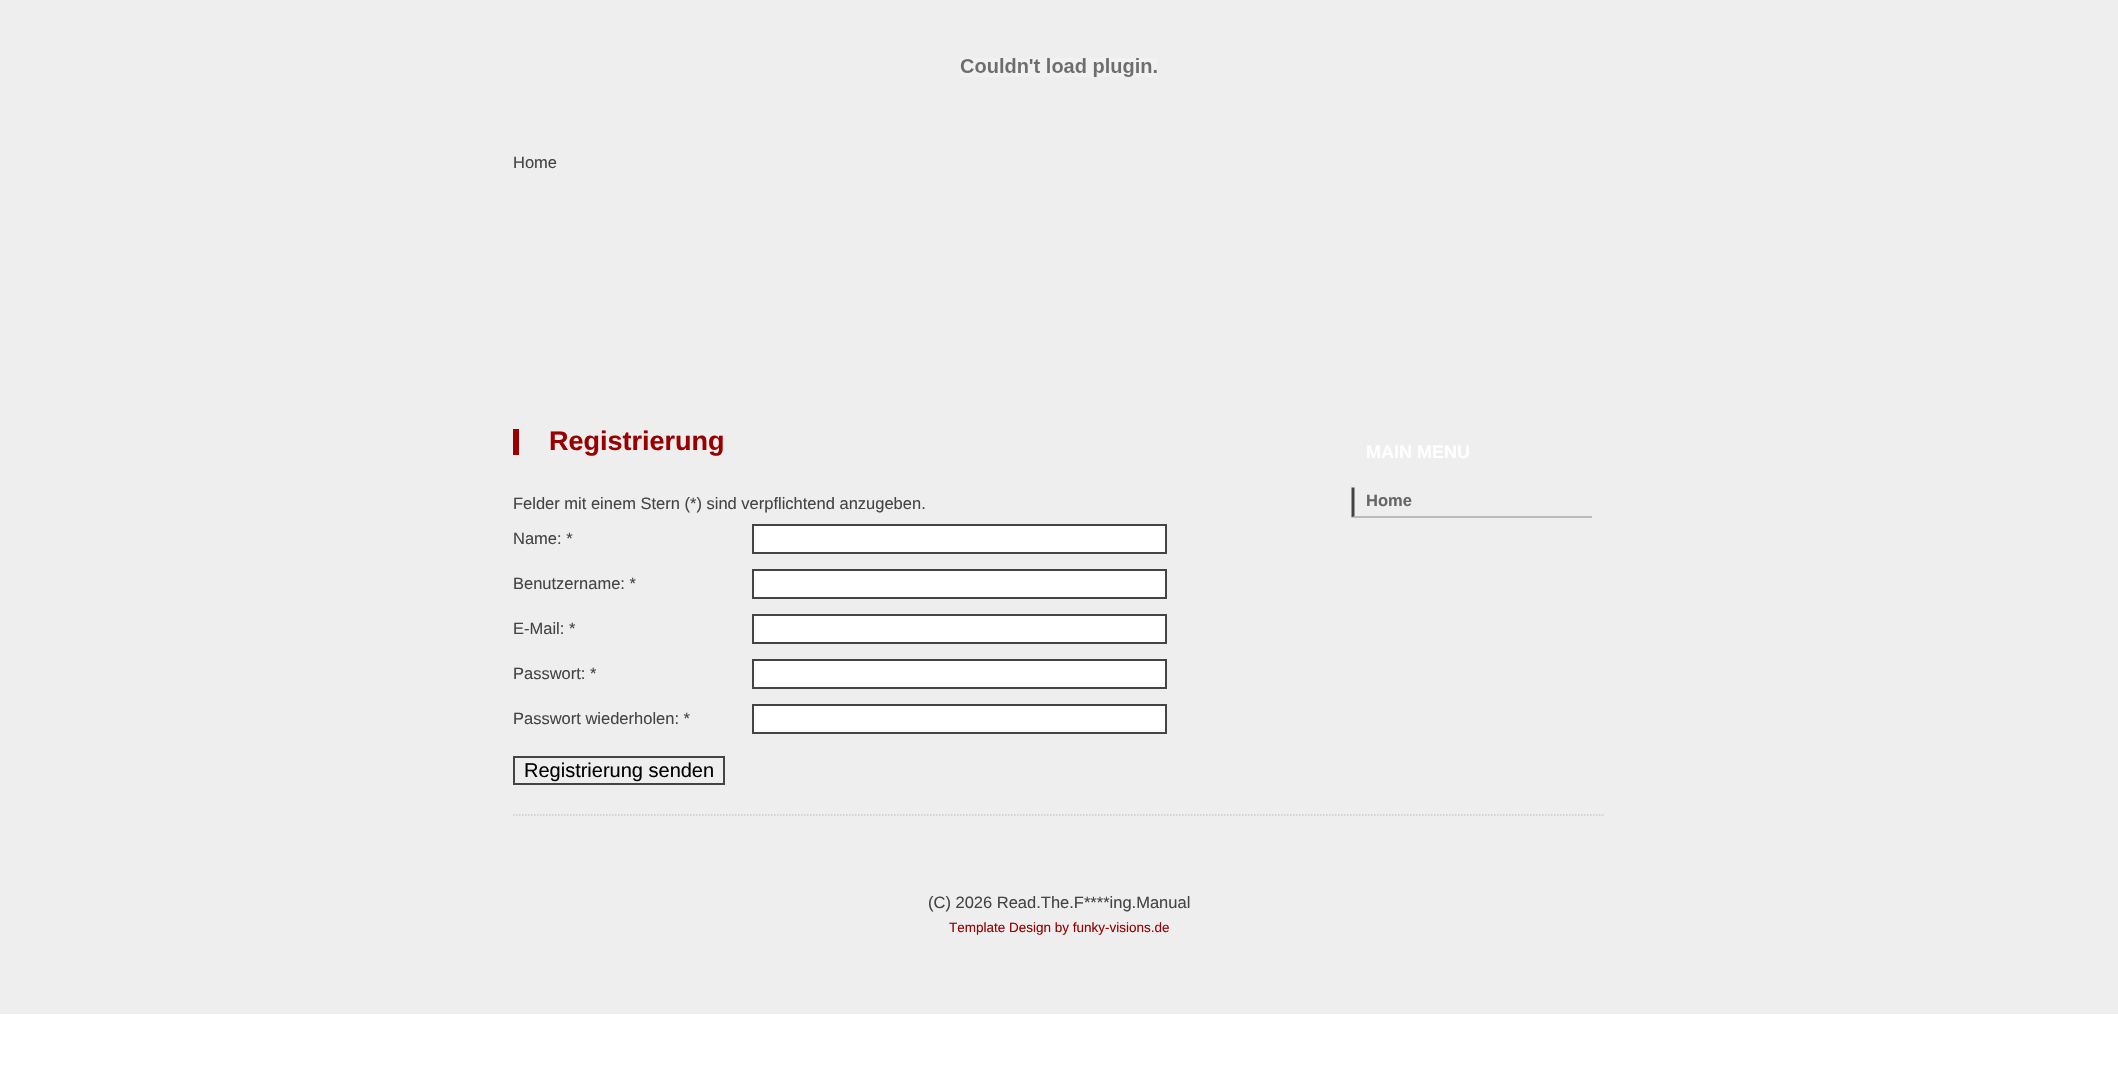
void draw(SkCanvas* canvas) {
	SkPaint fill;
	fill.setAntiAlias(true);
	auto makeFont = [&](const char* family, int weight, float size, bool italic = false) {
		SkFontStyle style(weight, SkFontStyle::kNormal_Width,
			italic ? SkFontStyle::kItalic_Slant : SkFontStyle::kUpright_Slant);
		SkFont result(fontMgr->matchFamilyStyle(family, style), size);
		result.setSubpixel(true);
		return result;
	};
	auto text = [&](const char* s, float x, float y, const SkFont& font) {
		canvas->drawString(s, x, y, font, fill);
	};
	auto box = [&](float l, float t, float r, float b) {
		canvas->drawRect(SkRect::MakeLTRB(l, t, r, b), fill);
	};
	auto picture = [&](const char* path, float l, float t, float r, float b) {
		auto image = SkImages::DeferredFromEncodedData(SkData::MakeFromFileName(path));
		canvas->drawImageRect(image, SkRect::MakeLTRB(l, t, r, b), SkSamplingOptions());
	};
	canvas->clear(0xFFFFFFFF);
	fill.setColor(0xFFEEEEEE);
	box(0, 0, 2118, 1014);
	picture("image0.png", 960, 58, 1157, 77);
	fill.setColor(0xFF990000);
	box(513, 429, 519, 455);
	fill.setColor(0xFFFFFFFF);
	canvas->drawRect(SkRect::MakeLTRB(753, 525, 1166, 553), fill);
	fill.setStyle(SkPaint::kStroke_Style);
	fill.setStrokeWidth(2);
	fill.setColor(0xFF444444);
	canvas->drawRect(SkRect::MakeLTRB(753, 525, 1166, 553), fill);
	fill.setStyle(SkPaint::kFill_Style);
	fill.setColor(0xFFFFFFFF);
	canvas->drawRect(SkRect::MakeLTRB(753, 570, 1166, 598), fill);
	fill.setStyle(SkPaint::kStroke_Style);
	fill.setColor(0xFF444444);
	canvas->drawRect(SkRect::MakeLTRB(753, 570, 1166, 598), fill);
	fill.setStyle(SkPaint::kFill_Style);
	fill.setColor(0xFFFFFFFF);
	canvas->drawRect(SkRect::MakeLTRB(753, 615, 1166, 643), fill);
	fill.setStyle(SkPaint::kStroke_Style);
	fill.setColor(0xFF444444);
	canvas->drawRect(SkRect::MakeLTRB(753, 615, 1166, 643), fill);
	fill.setStyle(SkPaint::kFill_Style);
	fill.setColor(0xFFFFFFFF);
	canvas->drawRect(SkRect::MakeLTRB(753, 660, 1166, 688), fill);
	fill.setStyle(SkPaint::kStroke_Style);
	fill.setColor(0xFF444444);
	canvas->drawRect(SkRect::MakeLTRB(753, 660, 1166, 688), fill);
	fill.setStyle(SkPaint::kFill_Style);
	fill.setColor(0xFFFFFFFF);
	canvas->drawRect(SkRect::MakeLTRB(753, 705, 1166, 733), fill);
	fill.setStyle(SkPaint::kStroke_Style);
	fill.setColor(0xFF444444);
	canvas->drawRect(SkRect::MakeLTRB(753, 705, 1166, 733), fill);
	canvas->drawRect(SkRect::MakeLTRB(514, 757, 724, 784), fill);
	fill.setStyle(SkPaint::kFill_Style);
	fill.setColor(0xFFBBBBBB);
	canvas->drawPath(SkPathBuilder().moveTo(1592, 518).lineTo(1352, 518).lineTo(1354, 516).lineTo(1592, 516).close().detach(), fill);
	fill.setColor(0xFF444444);
	canvas->drawPath(SkPathBuilder().moveTo(1351.5f, 517.5f).lineTo(1351.5f, 487.5f).lineTo(1354.5f, 487.5f).lineTo(1354.5f, 516).close().detach(), fill);
	fill.setStyle(SkPaint::kStroke_Style);
	fill.setStrokeWidth(1.5f);
	fill.setColor(0xFFCCCCCC);
	fill.setPathEffect(SkDashPathEffect::Make({{1.5f, 1.5f}}, 0));
	canvas->drawPath(SkPathBuilder().moveTo(513, 815).lineTo(1605, 815).detach(), fill);
	fill.setPathEffect(nullptr);
	auto font1 = makeFont("Liberation Sans", 400, 16.5f);
	fill.setStyle(SkPaint::kFill_Style);
	fill.setColor(0xFF444444);
	text("Home", 513, 168, font1);
	auto font2 = makeFont("Liberation Sans", 700, 27);
	fill.setColor(0xFF990000);
	text("Registrierung", 549, 450, font2);
	fill.setColor(0xFF444444);
	text("Felder mit einem Stern (*) sind verpflichtend anzugeben.", 513, 509, font1);
	text("Name: *", 513, 544, font1);
	text("Benutzername: *", 513, 589, font1);
	text("E-Mail: *", 513, 634, font1);
	text("Passwort: *", 513, 679, font1);
	text("Passwort wiederholen: *", 513, 724, font1);
	auto font3 = makeFont("Liberation Sans", 400, 20);
	fill.setColor(0xFF000000);
	text("Registrierung senden", 524, 777, font3);
	auto font4 = makeFont("Liberation Sans", 700, 18);
	fill.setColor(0xFFFFFFFF);
	text("MAIN MENU", 1366, 458, font4);
	auto font5 = makeFont("Liberation Sans", 700, 16.5f);
	fill.setColor(0xFF666666);
	text("Home", 1366, 506, font5);
	fill.setColor(0xFF444444);
	text("(C) 2026 Read.The.F****ing.Manual", 928, 908, font1);
	auto font6 = makeFont("Liberation Sans", 400, 13.5f);
	fill.setColor(0xFF990000);
	text("Template Design by funky-visions.de", 949, 932, font6);
}
